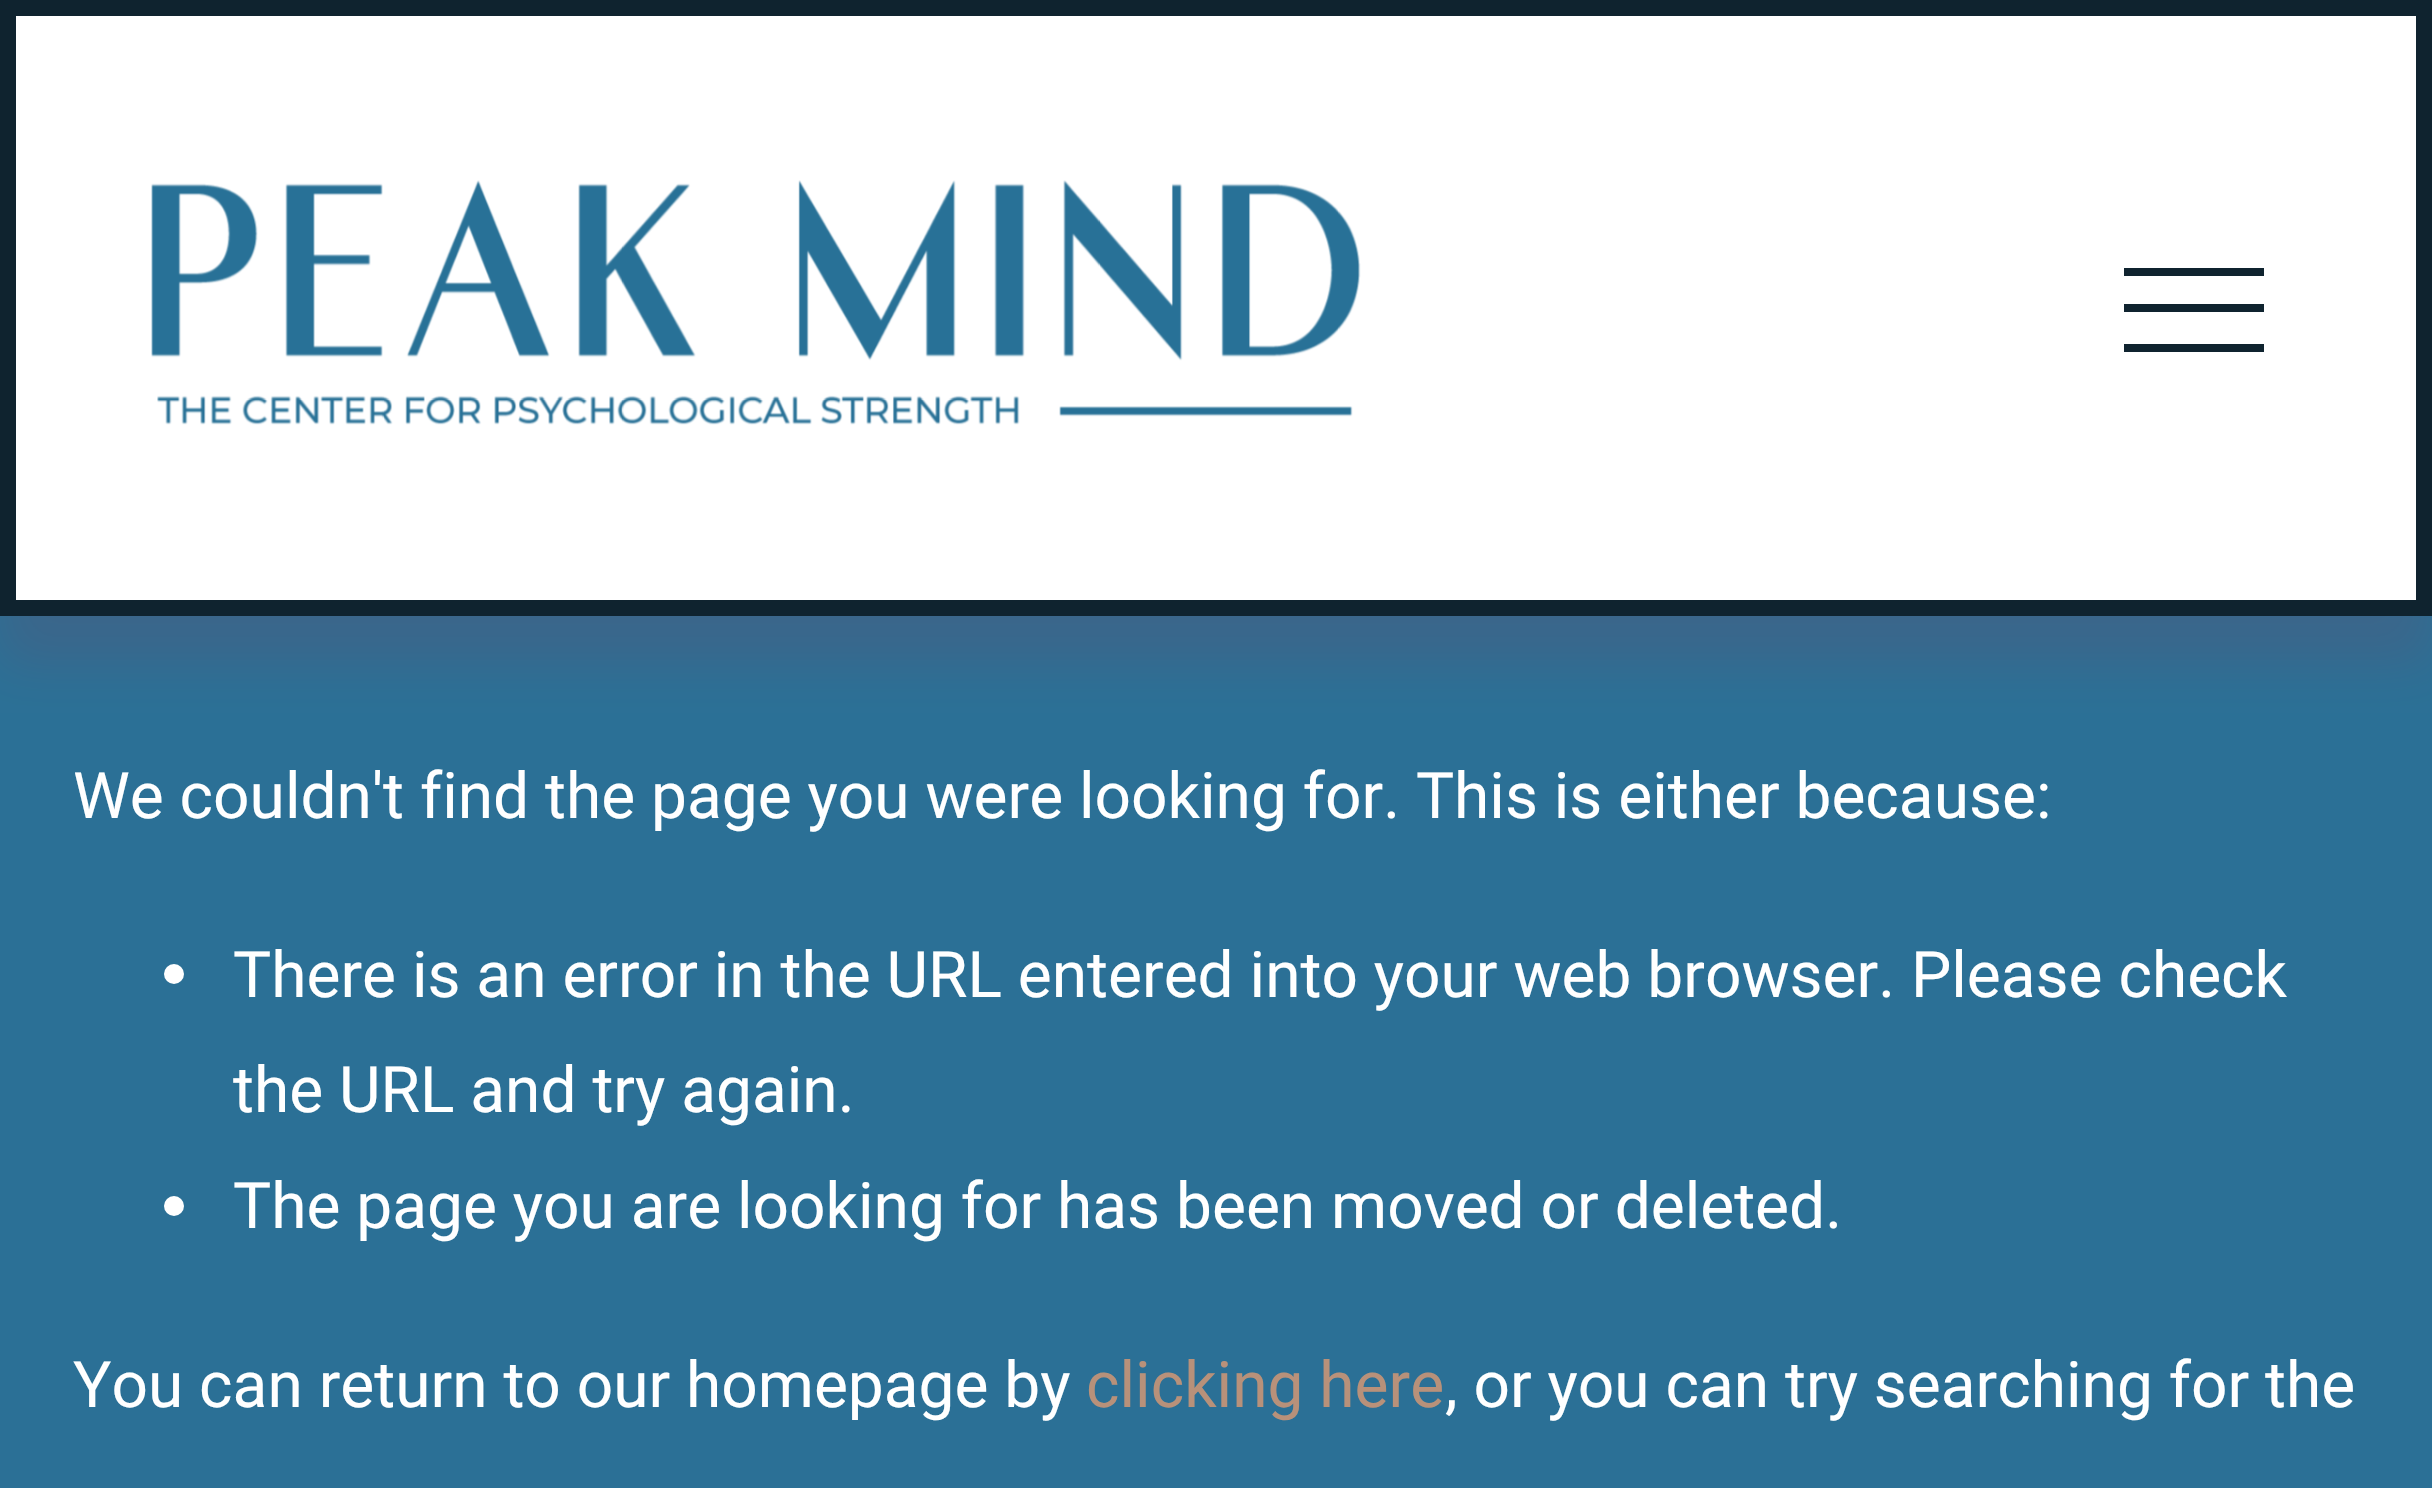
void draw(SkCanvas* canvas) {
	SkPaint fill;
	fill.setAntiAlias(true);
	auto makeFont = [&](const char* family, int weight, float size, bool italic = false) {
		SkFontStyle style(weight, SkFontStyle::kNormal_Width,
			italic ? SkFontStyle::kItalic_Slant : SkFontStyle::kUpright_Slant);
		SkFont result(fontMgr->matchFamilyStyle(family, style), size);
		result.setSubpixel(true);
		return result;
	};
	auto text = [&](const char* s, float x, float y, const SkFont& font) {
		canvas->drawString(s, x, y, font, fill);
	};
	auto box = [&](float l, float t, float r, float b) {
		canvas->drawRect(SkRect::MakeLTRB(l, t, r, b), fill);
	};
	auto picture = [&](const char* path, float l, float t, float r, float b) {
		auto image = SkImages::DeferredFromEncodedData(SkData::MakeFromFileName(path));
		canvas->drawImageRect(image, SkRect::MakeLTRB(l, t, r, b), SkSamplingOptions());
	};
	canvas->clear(0xFF2B7096);
	fill.setColor(0xFFFFFFFF);
	box(16, 16, 2416, 600);
	canvas->save();
	canvas->clipRect(SkRect::MakeLTRB(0, 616, 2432, 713));
	fill.setColor(0xFF3A668B);
	fill.setMaskFilter(SkMaskFilter::MakeBlur(kNormal_SkBlurStyle, 24));
	canvas->drawRect(SkRect::MakeLTRB(0, 48, 2432, 664), fill);
	fill.setMaskFilter(nullptr);
	canvas->restore();
	fill.setStyle(SkPaint::kStroke_Style);
	fill.setStrokeWidth(16);
	fill.setColor(0xFF0F232F);
	canvas->drawRect(SkRect::MakeLTRB(8, 8, 2424, 608), fill);
	picture("image0.png", 151, 180, 1361, 425);
	fill.setStyle(SkPaint::kFill_Style);
	box(2124, 268, 2264, 276);
	box(2124, 304, 2264, 312);
	box(2124, 344, 2264, 352);
	fill.setColor(0xFFFFFFFF);
	canvas->drawCircle(174, 974, 10, fill);
	canvas->drawCircle(174, 1206, 10, fill);
	auto font1 = makeFont("Roboto", 400, 64);
	text("We couldn't find the page you were looking for. This is either because:", 73, 818, font1);
	text("There is an error in the URL entered into your web browser. Please check", 233, 997, font1);
	text("the URL and try again.", 233, 1112, font1);
	text("The page you are looking for has been moved or deleted.", 233, 1228, font1);
	text("You can return to our homepage by", 73, 1407, font1);
	fill.setColor(0xFFB8917A);
	text("clicking here", 1086, 1407, font1);
	fill.setColor(0xFFFFFFFF);
	text(", or you can try searching for the", 1445, 1407, font1);
}
